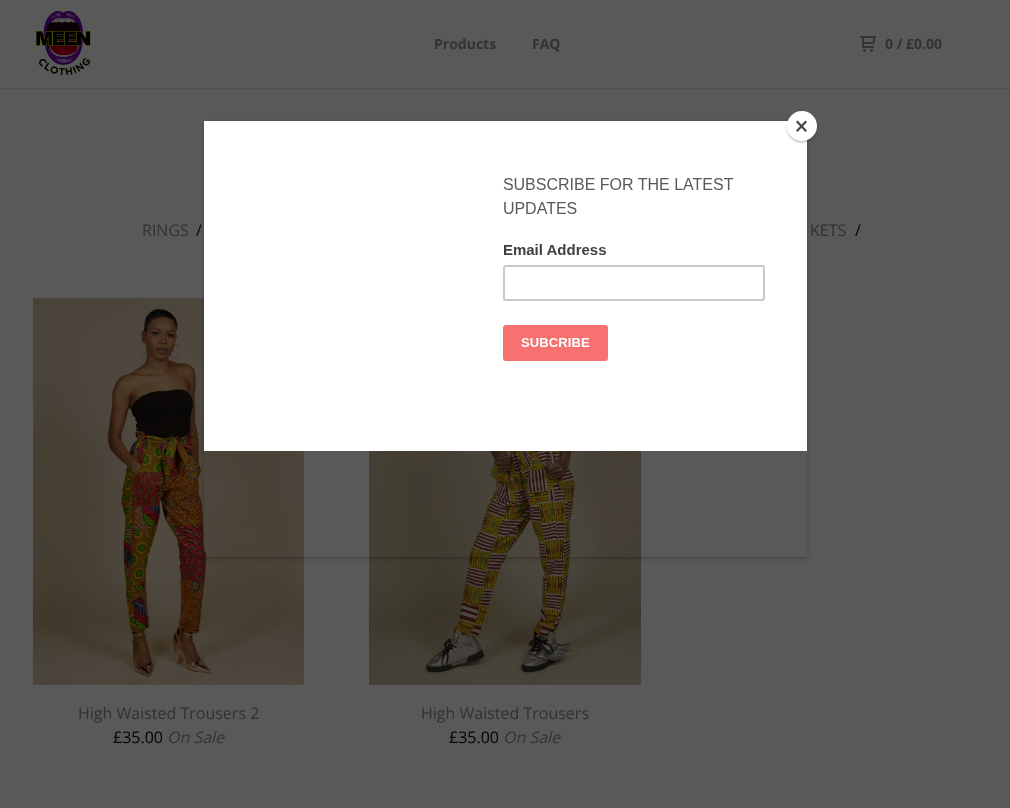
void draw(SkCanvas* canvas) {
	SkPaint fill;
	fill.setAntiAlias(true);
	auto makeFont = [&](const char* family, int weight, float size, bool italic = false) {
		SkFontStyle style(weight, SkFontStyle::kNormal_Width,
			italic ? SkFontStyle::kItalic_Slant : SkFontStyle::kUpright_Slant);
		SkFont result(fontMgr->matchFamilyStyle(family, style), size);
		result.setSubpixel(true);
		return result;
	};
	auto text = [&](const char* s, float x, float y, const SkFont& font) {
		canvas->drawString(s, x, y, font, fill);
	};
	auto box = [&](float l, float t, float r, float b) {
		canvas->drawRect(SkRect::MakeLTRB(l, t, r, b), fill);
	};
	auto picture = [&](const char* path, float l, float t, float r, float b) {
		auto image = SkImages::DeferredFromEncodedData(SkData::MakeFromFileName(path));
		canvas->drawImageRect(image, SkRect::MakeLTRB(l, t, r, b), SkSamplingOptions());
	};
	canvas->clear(0xFF595959);
	picture("image0.png", 35, 11, 91, 76);
	picture("image1.png", 860, 36, 876, 52);
	fill.setColor(0xFF4F4F4F);
	box(0, 88, 1010, 89);
	picture("image2.png", 33, 298, 304, 685);
	picture("image3.png", 369, 451, 641, 685);
	canvas->save();
	canvas->clipPath(SkPathBuilder(SkPathFillType::kEvenOdd).moveTo(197, 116).lineTo(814, 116).lineTo(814, 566).lineTo(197, 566).close().moveTo(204, 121).lineTo(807, 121).lineTo(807, 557).lineTo(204, 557).close().detach(), true);
	fill.setColor(0x33000000);
	fill.setMaskFilter(SkMaskFilter::MakeBlur(kNormal_SkBlurStyle, 2));
	canvas->drawRect(SkRect::MakeLTRB(204, 123, 807, 559), fill);
	fill.setMaskFilter(nullptr);
	canvas->restore();
	picture("image4.png", 204, 121, 807, 451);
	fill.setMaskFilter(SkMaskFilter::MakeBlur(kNormal_SkBlurStyle, 1));
	canvas->drawRoundRect(SkRect::MakeLTRB(787, 113, 817, 143), 15, 15, fill);
	fill.setMaskFilter(nullptr);
	fill.setColor(0xFFFFFFFF);
	canvas->drawCircle(802, 126, 15, fill);
	fill.setColor(0xFF414141);
	canvas->drawPath(SkPathBuilder().moveTo(805.5f, 120.5f).lineTo(807, 122).lineTo(797.5f, 132).lineTo(796, 130.5f).close().detach(), fill);
	canvas->drawPath(SkPathBuilder().moveTo(796, 122).lineTo(797.5f, 120.5f).lineTo(807, 130.5f).lineTo(805.5f, 132).close().detach(), fill);
	auto font1 = makeFont("Open Sans", 700, 14);
	fill.setColor(0xFF333333);
	text("Products", 434, 49, font1);
	text("FAQ", 532, 49, font1);
	text("0 / £0.00", 885, 49, font1);
	auto font2 = makeFont("Open Sans", 400, 16);
	text("RINGS", 142, 236, font2);
	fill.setColor(0xFF090909);
	text("/", 196, 236, font2);
	fill.setColor(0xFF333333);
	text("KETS", 810, 236, font2);
	fill.setColor(0xFF090909);
	text("/", 855, 236, font2);
	fill.setColor(0xFF333333);
	text("High Waisted Trousers 2", 78, 719, font2);
	fill.setColor(0xFF090909);
	text("£35.00", 113, 743, font2);
	auto font3 = makeFont("Open Sans", 400, 16, true);
	fill.setColor(0xFF333333);
	text("On Sale", 167, 743, font3);
	text("High Waisted Trousers", 421, 719, font2);
	fill.setColor(0xFF090909);
	text("£35.00", 449, 743, font2);
	fill.setColor(0xFF333333);
	text("On Sale", 503, 743, font3);
}
